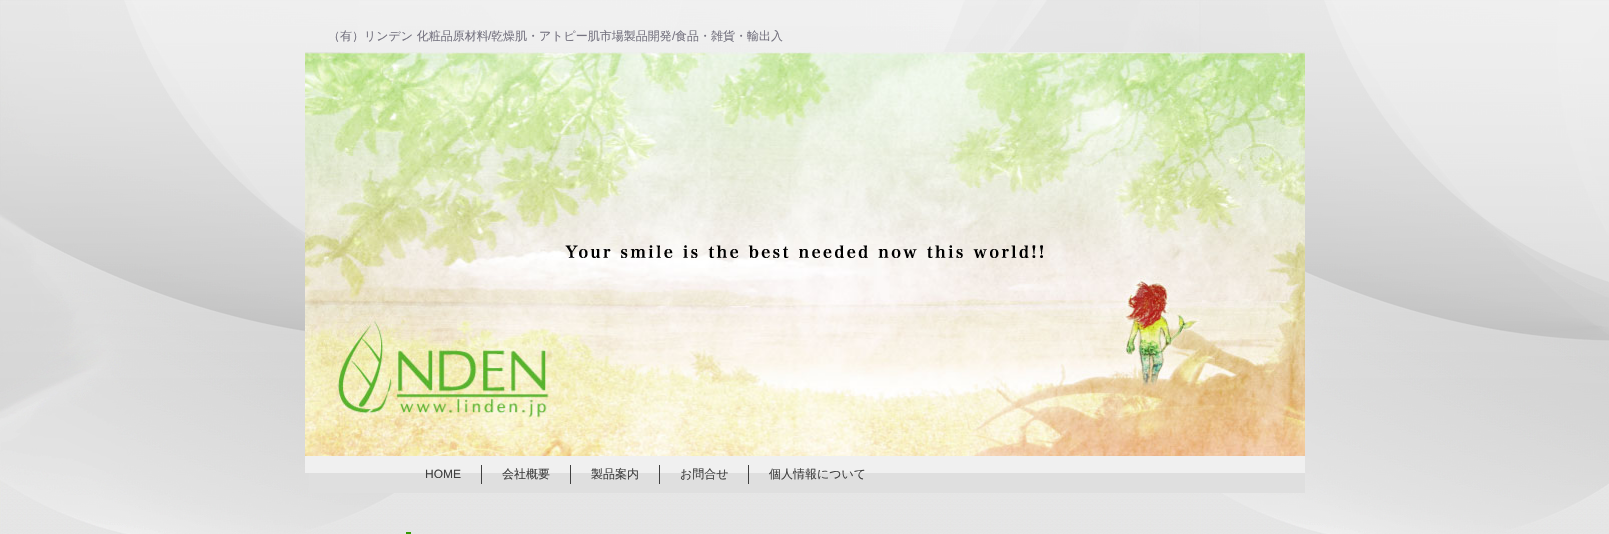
void draw(SkCanvas* canvas) {
	SkPaint fill;
	fill.setAntiAlias(true);
	auto makeFont = [&](const char* family, int weight, float size, bool italic = false) {
		SkFontStyle style(weight, SkFontStyle::kNormal_Width,
			italic ? SkFontStyle::kItalic_Slant : SkFontStyle::kUpright_Slant);
		SkFont result(fontMgr->matchFamilyStyle(family, style), size);
		result.setSubpixel(true);
		return result;
	};
	auto text = [&](const char* s, float x, float y, const SkFont& font) {
		canvas->drawString(s, x, y, font, fill);
	};
	auto box = [&](float l, float t, float r, float b) {
		canvas->drawRect(SkRect::MakeLTRB(l, t, r, b), fill);
	};
	auto picture = [&](const char* path, float l, float t, float r, float b) {
		auto image = SkImages::DeferredFromEncodedData(SkData::MakeFromFileName(path));
		canvas->drawImageRect(image, SkRect::MakeLTRB(l, t, r, b), SkSamplingOptions());
	};
	canvas->clear(0xFFFFFFFF);
	picture("image0.png", 0, 0, 1609, 534);
	picture("image1.png", 305, 52, 1305, 456);
	picture("image2.png", 565, 245, 1043, 258);
	fill.setColor(0xFFF0F0F0);
	box(305, 456, 1305, 473);
	fill.setColor(0xFFDFDFDF);
	box(309, 473, 1305, 493);
	fill.setColor(0xFF404040);
	box(481, 465, 482, 484);
	box(570, 465, 571, 484);
	box(659, 465, 660, 484);
	box(748, 465, 749, 484);
	fill.setColor(0xFF339901);
	box(406, 532, 411, 534);
	auto font1 = makeFont("WenQuanYi Zen Hei", 500, 12);
	fill.setColor(0xFF757380);
	text("（有）リンデン 化粧品原材料", 328, 40, font1);
	auto font2 = makeFont("Liberation Sans", 400, 12);
	text("/", 488, 40, font2);
	text("乾燥肌・アトピー肌市場製品開発", 491, 40, font1);
	text("/", 672, 40, font2);
	text("食品・雑貨・輸出入", 675, 40, font1);
	fill.setColor(0xFF404040);
	text("HOME", 425, 478, font2);
	text("会社概要", 502, 478, font1);
	text("製品案内", 591, 478, font1);
	text("お問合せ", 680, 478, font1);
	text("個人情報について", 769, 478, font1);
}
